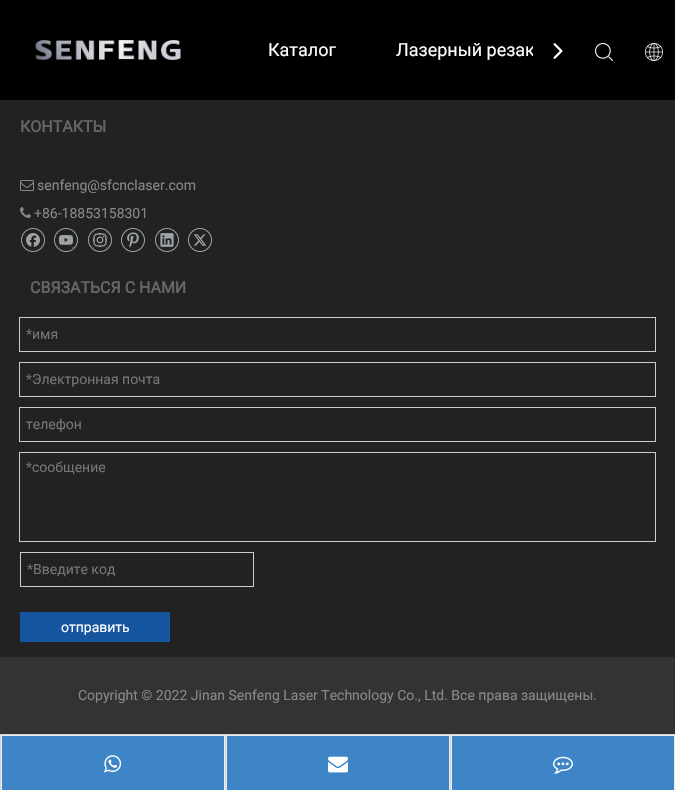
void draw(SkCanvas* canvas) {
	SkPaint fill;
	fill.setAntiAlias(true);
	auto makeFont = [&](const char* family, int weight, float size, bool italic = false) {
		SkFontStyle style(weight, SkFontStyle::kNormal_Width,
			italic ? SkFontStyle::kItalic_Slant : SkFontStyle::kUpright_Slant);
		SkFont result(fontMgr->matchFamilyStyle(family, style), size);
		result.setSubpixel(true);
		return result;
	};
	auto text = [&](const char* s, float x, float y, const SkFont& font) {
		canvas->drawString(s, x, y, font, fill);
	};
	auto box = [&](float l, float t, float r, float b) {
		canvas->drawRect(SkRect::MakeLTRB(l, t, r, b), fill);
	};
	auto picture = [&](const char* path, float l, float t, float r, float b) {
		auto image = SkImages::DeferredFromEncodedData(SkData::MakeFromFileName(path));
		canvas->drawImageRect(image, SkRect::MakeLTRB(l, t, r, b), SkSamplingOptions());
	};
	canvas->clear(0xFF222222);
	fill.setColor(0xFF000000);
	box(0, 0, 675, 100);
	picture("image0.png", 35, 40, 181, 60);
	picture("image1.png", 553, 43, 563, 59);
	picture("image2.png", 595, 43, 613, 61);
	picture("image3.png", 645, 43, 663, 61);
	picture("image4.png", 20, 180, 34, 191);
	picture("image5.png", 20, 207, 31, 218);
	picture("image6.png", 21, 228, 45, 252);
	picture("image7.png", 54, 228, 78, 252);
	picture("image8.png", 88, 228, 112, 252);
	picture("image9.png", 121, 228, 145, 252);
	picture("image10.png", 155, 228, 179, 252);
	picture("image11.png", 188, 228, 212, 252);
	fill.setStyle(SkPaint::kStroke_Style);
	fill.setStrokeWidth(1);
	fill.setColor(0xFFCCCCCC);
	canvas->drawRect(SkRect::MakeLTRB(19.5f, 317.5f, 655.5f, 351.5f), fill);
	canvas->drawRect(SkRect::MakeLTRB(19.5f, 362.5f, 655.5f, 396.5f), fill);
	canvas->drawRect(SkRect::MakeLTRB(19.5f, 407.5f, 655.5f, 441.5f), fill);
	canvas->drawRect(SkRect::MakeLTRB(19.5f, 452.5f, 655.5f, 541.5f), fill);
	canvas->drawRect(SkRect::MakeLTRB(20.5f, 552.5f, 253.5f, 586.5f), fill);
	fill.setStyle(SkPaint::kFill_Style);
	fill.setColor(0xFF16559F);
	box(20, 612, 170, 642);
	fill.setColor(0xFF333333);
	box(0, 657, 675, 734);
	fill.setColor(0xFFD3D3D3);
	box(0, 734, 675, 735);
	box(0, 735, 1, 790);
	fill.setColor(0xFF3D85C6);
	box(2, 736, 224, 790);
	fill.setColor(0xFFEEEEEE);
	box(1, 735, 225, 736);
	box(224, 735, 225, 790);
	box(1, 735, 2, 790);
	picture("image12.png", 104, 755, 122, 773);
	fill.setColor(0xFFD3D3D3);
	box(225, 735, 226, 790);
	fill.setColor(0xFF3D85C6);
	box(227, 736, 449, 790);
	fill.setColor(0xFFEEEEEE);
	box(226, 735, 450, 736);
	box(449, 735, 450, 790);
	box(226, 735, 227, 790);
	picture("image13.png", 328, 756, 348, 773);
	fill.setColor(0xFFD3D3D3);
	box(450, 735, 451, 790);
	fill.setColor(0xFF3D85C6);
	canvas->drawRect(SkRect::MakeLTRB(451.5f, 735.5f, 674.5f, 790.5f), fill);
	fill.setStyle(SkPaint::kStroke_Style);
	fill.setColor(0xFFEEEEEE);
	canvas->drawRect(SkRect::MakeLTRB(451.5f, 735.5f, 674.5f, 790.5f), fill);
	picture("image14.png", 553, 756, 573, 774);
	auto font1 = makeFont("Roboto", 400, 18);
	fill.setStyle(SkPaint::kFill_Style);
	fill.setColor(0xFFFFFFFF);
	text("Каталог", 268, 56, font1);
	canvas->save();
	canvas->clipRect(SkRect::MakeLTRB(268, 0, 533, 100));
	text("Лазерный резак", 396, 56, font1);
	canvas->restore();
	auto font2 = makeFont("Roboto", 700, 16);
	fill.setColor(0xFF666666);
	text("КОНТАКТЫ", 20, 132, font2);
	auto font3 = makeFont("Roboto", 400, 14);
	fill.setColor(0xFF888888);
	text("senfeng@sfcnclaser.com", 37, 190, font3);
	text("+86-18853158301", 34, 218, font3);
	fill.setColor(0xFF666666);
	text("СВЯЗАТЬСЯ С НАМИ", 30, 293, font2);
	fill.setColor(0xFF757575);
	text("*имя", 26, 339, font3);
	text("*Электронная почта", 26, 384, font3);
	text("телефон", 26, 429, font3);
	text("*сообщение", 26, 472, font3);
	text("*Введите код", 27, 574, font3);
	fill.setColor(0xFFFFFFFF);
	text("отправить", 61, 632, font3);
	fill.setColor(0xFF888888);
	text("Copyright © 2022 Jinan Senfeng Laser Technology Co., Ltd. Все права защищены.", 78, 700, font3);
}
